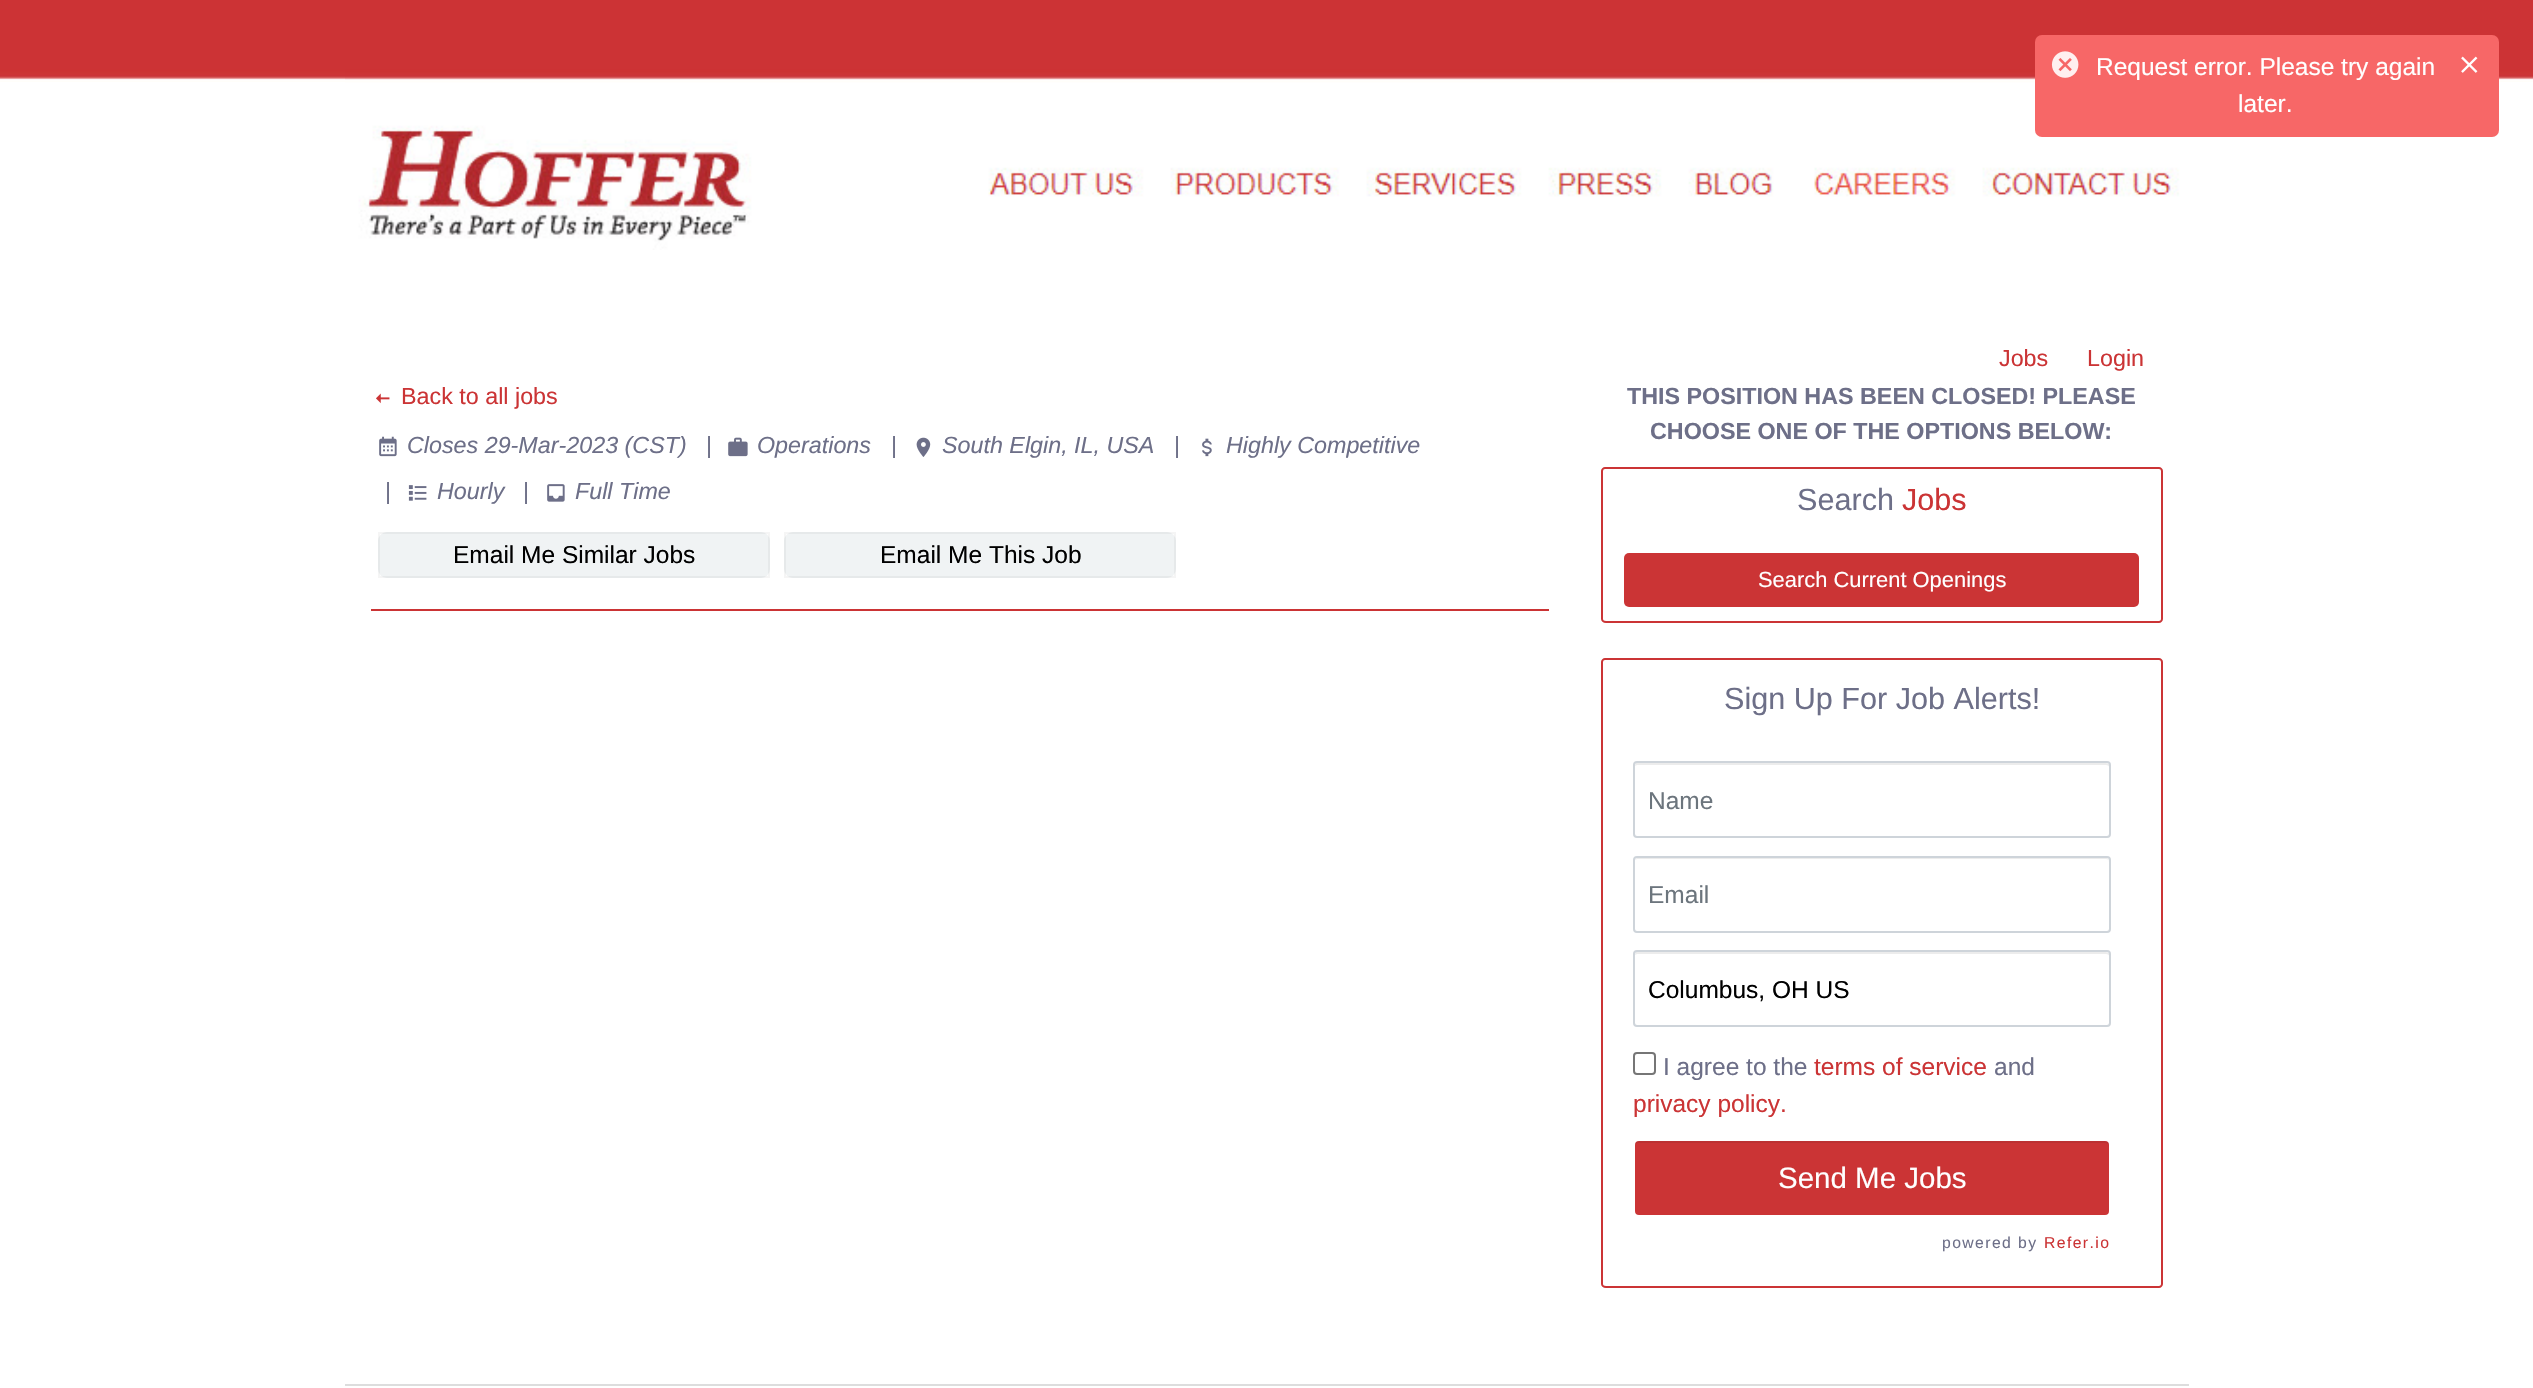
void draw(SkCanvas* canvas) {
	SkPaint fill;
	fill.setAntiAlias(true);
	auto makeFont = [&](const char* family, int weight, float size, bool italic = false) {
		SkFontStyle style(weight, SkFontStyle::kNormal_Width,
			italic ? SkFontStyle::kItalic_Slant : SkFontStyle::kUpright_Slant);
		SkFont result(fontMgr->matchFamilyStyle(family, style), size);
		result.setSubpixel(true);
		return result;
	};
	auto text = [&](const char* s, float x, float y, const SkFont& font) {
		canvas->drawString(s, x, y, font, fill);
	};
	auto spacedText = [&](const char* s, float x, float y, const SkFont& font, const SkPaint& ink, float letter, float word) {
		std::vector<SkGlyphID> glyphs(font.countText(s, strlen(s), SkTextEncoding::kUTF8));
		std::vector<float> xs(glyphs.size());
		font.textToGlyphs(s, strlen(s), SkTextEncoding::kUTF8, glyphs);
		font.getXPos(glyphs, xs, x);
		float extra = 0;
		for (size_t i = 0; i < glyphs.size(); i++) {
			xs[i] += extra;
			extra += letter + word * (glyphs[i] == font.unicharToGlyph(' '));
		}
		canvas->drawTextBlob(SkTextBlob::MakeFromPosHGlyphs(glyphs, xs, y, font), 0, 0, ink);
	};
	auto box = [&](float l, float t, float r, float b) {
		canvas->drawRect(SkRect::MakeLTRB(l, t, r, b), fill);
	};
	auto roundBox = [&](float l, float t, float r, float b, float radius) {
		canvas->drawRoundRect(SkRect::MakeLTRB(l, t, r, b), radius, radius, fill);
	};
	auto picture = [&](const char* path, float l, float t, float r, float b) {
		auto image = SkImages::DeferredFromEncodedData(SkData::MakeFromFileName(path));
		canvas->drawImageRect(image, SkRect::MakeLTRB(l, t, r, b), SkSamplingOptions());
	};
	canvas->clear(0xFFFFFFFF);
	picture("image0.png", 0, 0, 2533, 82);
	picture("image3.png", 345, 0, 2189, 250);
	fill.setColor(0xFFF65555);
	roundBox(2035, 35, 2499, 137, 7);
	picture("image1.png", 2051, 51, 2079, 78);
	fill.setColor(0x1AFFFFFF);
	roundBox(2035, 35, 2499, 137, 7);
	picture("image2.png", 2461, 56, 2478, 73);
	picture("image4.png", 376, 393, 390, 404);
	picture("image5.png", 379, 436, 397, 457);
	picture("image6.png", 728, 437, 748, 457);
	picture("image7.png", 916, 437, 931, 457);
	picture("image8.png", 1202, 438, 1212, 457);
	picture("image9.png", 408, 485, 427, 501);
	picture("image10.png", 547, 484, 565, 502);
	fill.setColor(0xFFF0F3F4);
	roundBox(378, 532, 770, 578, 9);
	fill.setStyle(SkPaint::kStroke_Style);
	fill.setStrokeWidth(2);
	fill.setColor(0x0A000000);
	canvas->drawRect(SkRect::MakeLTRB(379, 533, 769, 577), fill);
	fill.setStyle(SkPaint::kFill_Style);
	fill.setColor(0xFFF0F3F4);
	roundBox(784, 532, 1176, 578, 9);
	fill.setStyle(SkPaint::kStroke_Style);
	fill.setColor(0x0A000000);
	canvas->drawRect(SkRect::MakeLTRB(785, 533, 1175, 577), fill);
	fill.setStyle(SkPaint::kFill_Style);
	fill.setColor(0xFFCB3435);
	box(371, 609, 1549, 611);
	fill.setStyle(SkPaint::kStroke_Style);
	canvas->drawPath(SkPathBuilder().moveTo(1605, 468).lineTo(2159, 468).cubicTo(2160.5f, 468, 2162, 469.5f, 2162, 471).lineTo(2162, 542).lineTo(1602, 542).lineTo(1602, 471).cubicTo(1602, 469.5f, 1603.5f, 468, 1605, 468).close().detach(), fill);
	fill.setStyle(SkPaint::kFill_Style);
	fill.setColor(0xFFFFFFFF);
	canvas->drawPath(SkPathBuilder().moveTo(1603, 541).lineTo(2161, 541).lineTo(2161, 618.5f).cubicTo(2161, 620, 2160, 621, 2158.5f, 621).lineTo(1605.5f, 621).cubicTo(1604, 621, 1603, 620, 1603, 618.5f).close().detach(), fill);
	fill.setColor(0xFFCB3435);
	canvas->drawPath(SkPathBuilder(SkPathFillType::kEvenOdd).moveTo(1601, 541).lineTo(2163, 541).lineTo(2163, 619).cubicTo(2163, 621, 2161, 623, 2159, 623).lineTo(1606, 623).cubicTo(1603, 623, 1601, 621, 1601, 619).close().moveTo(1603, 541).lineTo(2161, 541).lineTo(2161, 619).cubicTo(2161, 620, 2160, 621, 2159, 621).lineTo(1606, 621).cubicTo(1604, 621, 1603, 620, 1603, 619).close().detach(), fill);
	roundBox(1624, 553, 2139, 607, 5);
	fill.setStyle(SkPaint::kStroke_Style);
	canvas->drawPath(SkPathBuilder().moveTo(1605, 659).lineTo(2159, 659).cubicTo(2160.5f, 659, 2162, 660.5f, 2162, 662).lineTo(2162, 741).lineTo(1602, 741).lineTo(1602, 662).cubicTo(1602, 660.5f, 1603.5f, 659, 1605, 659).close().detach(), fill);
	fill.setStyle(SkPaint::kFill_Style);
	fill.setColor(0xFFFFFFFF);
	canvas->drawPath(SkPathBuilder().moveTo(1603, 740).lineTo(2161, 740).lineTo(2161, 1283.5f).cubicTo(2161, 1285, 2160, 1286, 2158.5f, 1286).lineTo(1605.5f, 1286).cubicTo(1604, 1286, 1603, 1285, 1603, 1283.5f).close().detach(), fill);
	fill.setColor(0xFFCB3435);
	canvas->drawPath(SkPathBuilder(SkPathFillType::kEvenOdd).moveTo(1601, 740).lineTo(2163, 740).lineTo(2163, 1284).cubicTo(2163, 1286, 2161, 1288, 2159, 1288).lineTo(1606, 1288).cubicTo(1603, 1288, 1601, 1286, 1601, 1284).close().moveTo(1603, 740).lineTo(2161, 740).lineTo(2161, 1284).cubicTo(2161, 1285, 2160, 1286, 2159, 1286).lineTo(1606, 1286).cubicTo(1604, 1286, 1603, 1285, 1603, 1284).close().detach(), fill);
	fill.setColor(0xFFECECEC);
	canvas->drawPath(SkPathBuilder().moveTo(1637, 765).lineTo(2106, 765).cubicTo(2108, 765, 2109, 766, 2109, 767).lineTo(2109, 764).lineTo(2106, 763).lineTo(1638, 763).lineTo(1636, 763).lineTo(1635, 766).close().detach(), fill);
	fill.setStyle(SkPaint::kStroke_Style);
	fill.setColor(0xFFCED4DA);
	canvas->drawRoundRect(SkRect::MakeLTRB(1634, 762, 2110, 837), 3, 3, fill);
	fill.setStyle(SkPaint::kFill_Style);
	fill.setColor(0xFFECECEC);
	canvas->drawPath(SkPathBuilder().moveTo(1637, 859).lineTo(2106, 859).cubicTo(2108, 859, 2109, 860, 2109, 862).cubicTo(2109, 861, 2109, 859, 2107, 858).lineTo(1637, 858).lineTo(1635, 860).close().detach(), fill);
	fill.setStyle(SkPaint::kStroke_Style);
	fill.setColor(0xFFCED4DA);
	canvas->drawRoundRect(SkRect::MakeLTRB(1634, 857, 2110, 932), 3, 3, fill);
	fill.setStyle(SkPaint::kFill_Style);
	fill.setColor(0xFFECECEC);
	canvas->drawPath(SkPathBuilder().moveTo(1637, 954).lineTo(2106, 954).cubicTo(2108, 954, 2109, 955, 2109, 956).lineTo(2109, 953).lineTo(2106, 952).lineTo(1638, 952).lineTo(1636, 952).lineTo(1635, 955).close().detach(), fill);
	fill.setStyle(SkPaint::kStroke_Style);
	fill.setColor(0xFFCED4DA);
	canvas->drawRoundRect(SkRect::MakeLTRB(1634, 951, 2110, 1026), 3, 3, fill);
	fill.setColor(0xFF767676);
	canvas->drawRoundRect(SkRect::MakeLTRB(1634, 1053, 1655, 1074), 3, 3, fill);
	fill.setStyle(SkPaint::kFill_Style);
	fill.setColor(0xFFCB3435);
	roundBox(1635, 1141, 2109, 1215, 4);
	fill.setColor(0x12000000);
	canvas->drawPath(SkPathBuilder().moveTo(1638, 1143).lineTo(2105, 1143).cubicTo(2107, 1143, 2109, 1144, 2109, 1146).lineTo(2109, 1145).cubicTo(2109, 1143, 2107, 1141, 2105, 1141).lineTo(1639, 1141).cubicTo(1637, 1141, 1636, 1142, 1635, 1144).close().detach(), fill);
	fill.setColor(0xFFDDDDDD);
	box(345, 1384, 2189, 1386);
	auto font1 = makeFont("Liberation Sans", 400, 24.5f);
	fill.setColor(0xFFFFFFFF);
	text("Request error. Please try again", 2096, 75, font1);
	text("later.", 2238, 112, font1);
	auto font2 = makeFont("Liberation Sans", 400, 23.3f);
	fill.setColor(0xFFCB3435);
	text("Jobs", 1999, 366, font2);
	text("Login", 2087, 366, font2);
	text("Back to all jobs", 401, 404, font2);
	auto font3 = makeFont("Liberation Sans", 400, 23.3f, true);
	fill.setColor(0xFF6D6F88);
	text("Closes 29-Mar-2023 (CST)", 407, 453, font3);
	text("|", 706, 453, font2);
	text("Operations", 757, 453, font3);
	text("|", 891, 453, font2);
	text("South Elgin, IL, USA", 942, 453, font3);
	text("|", 1174, 453, font2);
	text("Highly Competitive", 1226, 453, font3);
	text("|", 385, 499, font2);
	text("Hourly", 437, 499, font3);
	text("|", 523, 499, font2);
	text("Full Time", 575, 499, font3);
	fill.setColor(0xFF000000);
	text("Email Me Similar Jobs", 453, 563, font1);
	text("Email Me This Job", 880, 563, font1);
	auto font4 = makeFont("Liberation Sans", 700, 23.3f);
	fill.setColor(0xFF6D6F88);
	text("THIS POSITION HAS BEEN CLOSED! PLEASE", 1627, 404, font4);
	text("CHOOSE ONE OF THE OPTIONS BELOW:", 1650, 439, font4);
	auto font5 = makeFont("Liberation Sans", 400, 30.6f);
	text("Search", 1797, 510, font5);
	fill.setColor(0xFFCB3435);
	text("Jobs", 1902, 510, font5);
	auto font6 = makeFont("Liberation Sans", 400, 21.9f);
	fill.setColor(0xFFFFFFFF);
	text("Search Current Openings", 1758, 587, font6);
	fill.setColor(0xFF6D6F88);
	text("Sign Up For Job Alerts!", 1724, 709, font5);
	fill.setColor(0xFF6C757D);
	text("Name", 1648, 809, font1);
	text("Email", 1648, 903, font1);
	fill.setColor(0xFF000000);
	text("Columbus, OH US", 1648, 998, font1);
	fill.setColor(0xFF6D6F88);
	text("I agree to the", 1663, 1075, font1);
	fill.setColor(0xFFCB3435);
	text("terms of service", 1814, 1075, font1);
	fill.setColor(0xFF6D6F88);
	text("and", 1994, 1075, font1);
	fill.setColor(0xFFCB3435);
	text("privacy policy.", 1633, 1112, font1);
	auto font7 = makeFont("Liberation Sans", 400, 29.5f);
	fill.setColor(0xFFFFFFFF);
	text("Send Me Jobs", 1778, 1188, font7);
	auto font8 = makeFont("Liberation Sans", 400, 15.75f);
	fill.setColor(0xFF6D6F88);
	spacedText("powered by", 1942, 1248, font8, fill, 1.4f, 0);
	fill.setColor(0xFFCB3435);
	spacedText("Refer.io", 2044, 1248, font8, fill, 1.4f, 0);
}
